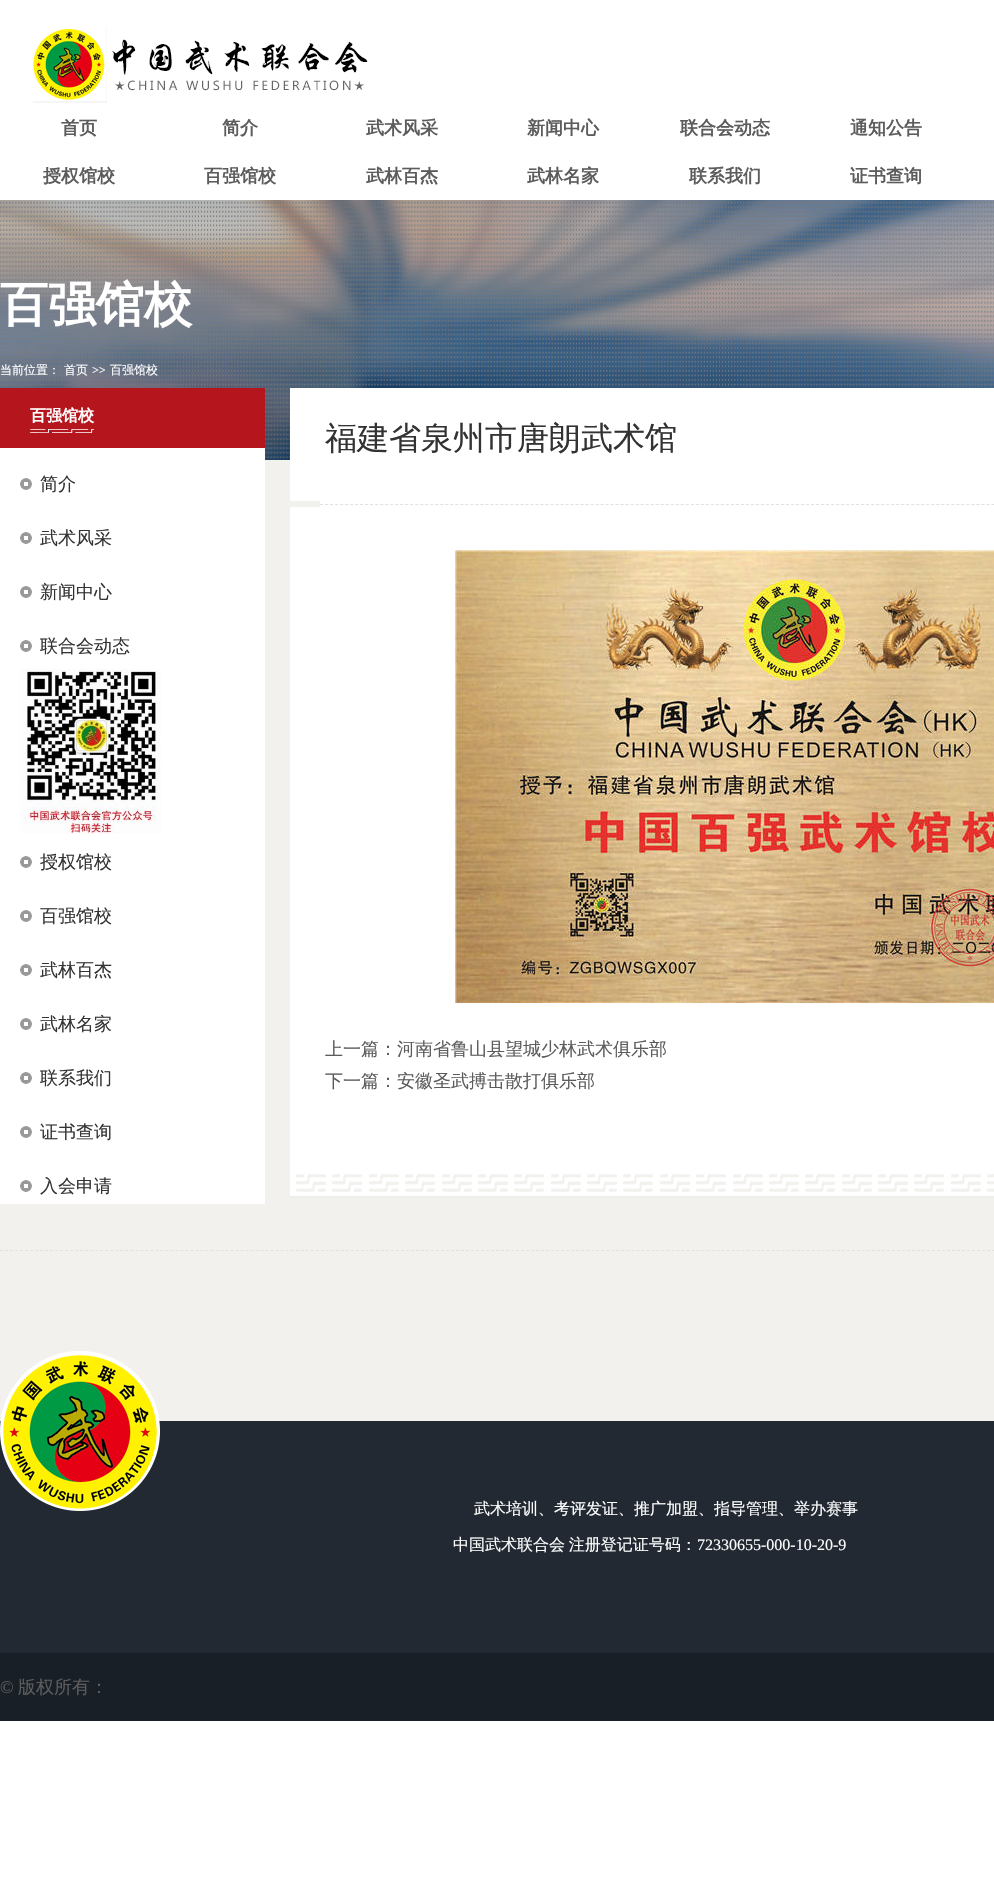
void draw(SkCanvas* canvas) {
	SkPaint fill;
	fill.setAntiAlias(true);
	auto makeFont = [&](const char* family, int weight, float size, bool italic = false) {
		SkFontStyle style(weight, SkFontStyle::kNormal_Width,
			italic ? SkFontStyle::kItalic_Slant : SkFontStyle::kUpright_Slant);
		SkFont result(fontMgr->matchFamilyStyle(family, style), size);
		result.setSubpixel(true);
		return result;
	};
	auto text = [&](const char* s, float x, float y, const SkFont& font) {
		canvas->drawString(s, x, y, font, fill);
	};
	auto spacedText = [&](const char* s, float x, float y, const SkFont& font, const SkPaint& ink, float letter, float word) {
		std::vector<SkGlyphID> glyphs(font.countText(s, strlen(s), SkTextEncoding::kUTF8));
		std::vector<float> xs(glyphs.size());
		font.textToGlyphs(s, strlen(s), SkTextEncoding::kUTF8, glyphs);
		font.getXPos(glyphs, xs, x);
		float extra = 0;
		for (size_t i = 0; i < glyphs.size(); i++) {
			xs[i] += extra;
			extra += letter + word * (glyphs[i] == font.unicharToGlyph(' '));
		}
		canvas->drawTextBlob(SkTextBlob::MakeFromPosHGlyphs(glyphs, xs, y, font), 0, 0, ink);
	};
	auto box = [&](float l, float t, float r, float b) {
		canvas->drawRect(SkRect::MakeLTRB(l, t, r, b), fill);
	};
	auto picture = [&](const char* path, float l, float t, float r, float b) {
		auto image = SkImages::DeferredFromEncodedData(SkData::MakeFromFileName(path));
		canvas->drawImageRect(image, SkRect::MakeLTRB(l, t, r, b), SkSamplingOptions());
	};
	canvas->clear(0xFFFFFFFF);
	fill.setColor(0xFFF2F1ED);
	box(0, 460, 994, 1421);
	picture("image0.png", 33, 27, 368, 103);
	picture("image1.png", 0, 200, 994, 460);
	fill.setColor(0xFFFFFFFF);
	box(0, 448, 265, 1204);
	fill.setColor(0xFFB5151D);
	box(0, 388, 265, 448);
	picture("image2.png", 30, 429, 94, 433);
	picture("image3.png", 20, 478, 32, 490);
	picture("image3.png", 20, 532, 32, 544);
	picture("image3.png", 20, 586, 32, 598);
	picture("image3.png", 20, 640, 32, 652);
	picture("image3.png", 20, 856, 32, 868);
	picture("image3.png", 20, 910, 32, 922);
	picture("image3.png", 20, 964, 32, 976);
	picture("image3.png", 20, 1018, 32, 1030);
	picture("image3.png", 20, 1072, 32, 1084);
	picture("image3.png", 20, 1126, 32, 1138);
	picture("image3.png", 20, 1180, 32, 1192);
	fill.setColor(0xFFFFFFFF);
	box(290, 388, 994, 1196);
	picture("image4.png", 290, 1174, 994, 1198);
	fill.setStyle(SkPaint::kStroke_Style);
	fill.setStrokeWidth(1);
	fill.setColor(0xFFE1E1E1);
	fill.setPathEffect(SkDashPathEffect::Make({{3, 2.01f}}, 0));
	canvas->drawPath(SkPathBuilder().moveTo(290, 504.5f).lineTo(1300, 504.5f).detach(), fill);
	fill.setPathEffect(nullptr);
	fill.setStyle(SkPaint::kFill_Style);
	fill.setColor(0xFFF2F1EE);
	box(290, 501, 320, 507);
	picture("image5.png", 455, 550, 994, 1003);
	fill.setStyle(SkPaint::kStroke_Style);
	fill.setColor(0xFFE1E1E1);
	fill.setPathEffect(SkDashPathEffect::Make({{3, 2.01f}}, 0));
	canvas->drawPath(SkPathBuilder().moveTo(-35, 1250.5f).lineTo(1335, 1250.5f).detach(), fill);
	fill.setPathEffect(nullptr);
	picture("image6.png", 20, 669, 161, 834);
	fill.setStyle(SkPaint::kFill_Style);
	fill.setColor(0xFF222933);
	box(0, 1421, 994, 1653);
	picture("image7.png", 0, 1351, 160, 1511);
	fill.setColor(0xFF191F27);
	box(0, 1653, 994, 1721);
	auto font1 = makeFont("WenQuanYi Zen Hei", 700, 18);
	fill.setColor(0xFF5C5C5C);
	text("首页", 61, 134, font1);
	text("简介", 222, 134, font1);
	text("武术风采", 366, 134, font1);
	text("新闻中心", 527, 134, font1);
	text("联合会动态", 680, 134, font1);
	text("通知公告", 850, 134, font1);
	text("授权馆校", 43, 182, font1);
	text("百强馆校", 204, 182, font1);
	text("武林百杰", 366, 182, font1);
	text("武林名家", 527, 182, font1);
	text("联系我们", 689, 182, font1);
	text("证书查询", 850, 182, font1);
	auto font2 = makeFont("WenQuanYi Zen Hei", 700, 48);
	fill.setColor(0xFFFFFFFF);
	text("百强馆校", 0, 321, font2);
	auto font3 = makeFont("WenQuanYi Zen Hei", 500, 12);
	text("当前位置：", 0, 374, font3);
	text("首页", 64, 374, font3);
	auto font4 = makeFont("Liberation Serif", 400, 12);
	text(">>", 92, 374, font4);
	text("百强馆校", 110, 374, font3);
	auto font5 = makeFont("WenQuanYi Zen Hei", 700, 16);
	text("百强馆校", 30, 421, font5);
	auto font6 = makeFont("WenQuanYi Zen Hei", 500, 18);
	fill.setColor(0xFF333333);
	text("简介", 40, 490, font6);
	text("武术风采", 40, 544, font6);
	text("新闻中心", 40, 598, font6);
	text("联合会动态", 40, 652, font6);
	text("授权馆校", 40, 868, font6);
	text("百强馆校", 40, 922, font6);
	text("武林百杰", 40, 976, font6);
	text("武林名家", 40, 1030, font6);
	text("联系我们", 40, 1084, font6);
	text("证书查询", 40, 1138, font6);
	text("入会申请", 40, 1192, font6);
	auto font7 = makeFont("WenQuanYi Zen Hei", 500, 32);
	text("福建省泉州市唐朗武术馆", 325, 449, font7);
	fill.setColor(0xFF5C5C5C);
	text("上一篇：河南省鲁山县望城少林武术俱乐部", 325, 1055, font6);
	text("下一篇：安徽圣武搏击散打俱乐部", 325, 1087, font6);
	auto font8 = makeFont("WenQuanYi Zen Hei", 500, 16);
	fill.setColor(0xFFFFFFFF);
	text("武术培训、考评发证、推广加盟、指导管理、举办赛事", 474, 1514, font8);
	spacedText("中国武术联合会 注册登记证号码：", 453, 1550, font8, fill, 0, -1);
	auto font9 = makeFont("Liberation Serif", 400, 16);
	text("72330655-000-10-20-9", 697, 1550, font9);
	auto font10 = makeFont("Liberation Serif", 400, 18);
	fill.setColor(0xFF5C5C5C);
	text("©", 0, 1693, font10);
	text("版权所有：", 18, 1693, font6);
}
